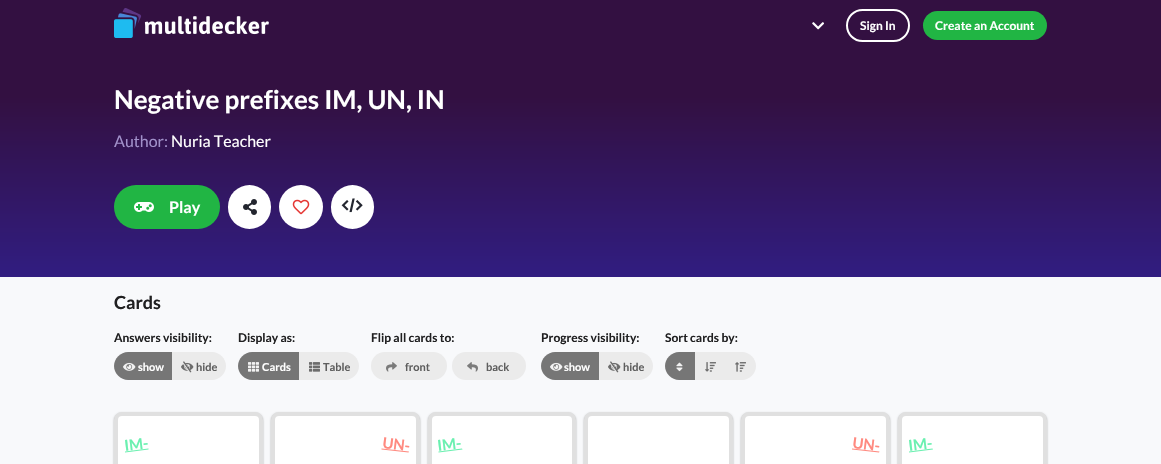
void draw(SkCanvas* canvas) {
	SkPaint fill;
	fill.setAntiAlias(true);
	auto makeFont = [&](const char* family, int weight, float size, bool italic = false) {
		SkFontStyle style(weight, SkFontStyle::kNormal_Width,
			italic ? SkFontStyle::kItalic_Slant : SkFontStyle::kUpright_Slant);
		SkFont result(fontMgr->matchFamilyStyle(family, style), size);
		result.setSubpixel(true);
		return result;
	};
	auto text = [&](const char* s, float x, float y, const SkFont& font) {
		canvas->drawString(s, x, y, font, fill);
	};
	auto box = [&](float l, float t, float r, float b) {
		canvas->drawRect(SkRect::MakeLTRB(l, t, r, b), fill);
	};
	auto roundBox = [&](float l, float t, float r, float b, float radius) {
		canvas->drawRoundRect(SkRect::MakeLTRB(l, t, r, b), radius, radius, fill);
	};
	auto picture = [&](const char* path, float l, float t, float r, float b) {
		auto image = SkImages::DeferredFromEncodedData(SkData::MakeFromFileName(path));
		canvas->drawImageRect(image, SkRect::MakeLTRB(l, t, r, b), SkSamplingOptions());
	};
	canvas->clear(0xFFF8F9FB);
	fill.setColor(0xFF331041);
	box(0, 0, 1161, 51);
	picture("image0.png", 114, 8, 269, 38);
	picture("image1.png", 812, 22, 824, 30);
	fill.setStyle(SkPaint::kStroke_Style);
	fill.setStrokeWidth(2);
	fill.setColor(0xFFFFFFFF);
	canvas->drawRoundRect(SkRect::MakeLTRB(847, 10, 909, 41), 15.5f, 15.5f, fill);
	fill.setStyle(SkPaint::kFill_Style);
	fill.setColor(0xFF21B544);
	roundBox(923, 11, 1047, 40, 14.5f);
	{
		const SkColor colors[] = {0xFF331041, 0xFF311D81};
		const float stops[] = {0.2f, 1};
		const SkPoint ends[] = {{581, 51}, {581, 277}};
		fill.setShader(SkGradientShader::MakeLinear(ends, colors, stops, 2, SkTileMode::kClamp));
		fill.setAlpha(255);
	}
	box(0, 51, 1161, 277);
	fill.setShader(nullptr);
	fill.setColor(0xFF21B544);
	roundBox(114, 185, 220, 229, 22);
	picture("image2.png", 134, 202, 154, 212);
	fill.setColor(0xFFFFFFFF);
	roundBox(228, 185, 271, 229, 21.5f);
	picture("image3.png", 243, 199, 257, 215);
	canvas->drawCircle(301, 207, 22, fill);
	picture("image4.png", 292, 199, 310, 215);
	roundBox(331, 185, 374, 229, 21.5f);
	picture("image5.png", 341, 198, 363, 213);
	fill.setColor(0xFF767676);
	canvas->drawPath(SkPathBuilder().moveTo(128, 352).lineTo(172, 352).lineTo(172, 380).lineTo(128, 380).cubicTo(120.5f, 380, 114, 373.5f, 114, 366).cubicTo(114, 358.5f, 120.5f, 352, 128, 352).close().detach(), fill);
	picture("image6.png", 123, 362, 136, 371);
	fill.setColor(0xFFEBEBEB);
	canvas->drawPath(SkPathBuilder().moveTo(172, 352).lineTo(212, 352).cubicTo(219.5f, 352, 226, 358.5f, 226, 366).cubicTo(226, 373.5f, 219.5f, 380, 212, 380).lineTo(172, 380).close().detach(), fill);
	picture("image7.png", 181, 361, 194, 373);
	fill.setColor(0xFF767676);
	canvas->drawPath(SkPathBuilder().moveTo(252, 352).lineTo(299, 352).lineTo(299, 380).lineTo(252, 380).cubicTo(244.5f, 380, 238, 373.5f, 238, 366).cubicTo(238, 358.5f, 244.5f, 352, 252, 352).close().detach(), fill);
	picture("image8.png", 248, 362, 259, 372);
	fill.setColor(0xFFEBEBEB);
	canvas->drawPath(SkPathBuilder().moveTo(299, 352).lineTo(345, 352).cubicTo(352.5f, 352, 359, 358.5f, 359, 366).cubicTo(359, 373.5f, 352.5f, 380, 345, 380).lineTo(299, 380).close().detach(), fill);
	picture("image9.png", 309, 362, 320, 372);
	roundBox(371, 352, 447, 380, 14);
	picture("image10.png", 386, 362, 397, 372);
	roundBox(452, 352, 526, 380, 14);
	picture("image11.png", 467, 362, 478, 372);
	fill.setColor(0xFF767676);
	canvas->drawPath(SkPathBuilder().moveTo(555, 352).lineTo(599, 352).lineTo(599, 380).lineTo(555, 380).cubicTo(547.5f, 380, 541, 373.5f, 541, 366).cubicTo(541, 358.5f, 547.5f, 352, 555, 352).close().detach(), fill);
	picture("image6.png", 550, 362, 563, 371);
	fill.setColor(0xFFEBEBEB);
	canvas->drawPath(SkPathBuilder().moveTo(599, 352).lineTo(639, 352).cubicTo(646.5f, 352, 653, 358.5f, 653, 366).cubicTo(653, 373.5f, 646.5f, 380, 639, 380).lineTo(599, 380).close().detach(), fill);
	picture("image7.png", 608, 361, 621, 373);
	fill.setColor(0xFF767676);
	canvas->drawPath(SkPathBuilder().moveTo(679, 352).lineTo(695, 352).lineTo(695, 380).lineTo(679, 380).cubicTo(671.5f, 380, 665, 373.5f, 665, 366).cubicTo(665, 358.5f, 671.5f, 352, 679, 352).close().detach(), fill);
	picture("image12.png", 676, 362, 683, 372);
	fill.setColor(0xFFEBEBEB);
	box(695, 352, 725, 380);
	picture("image13.png", 705, 362, 716, 372);
	canvas->drawPath(SkPathBuilder().moveTo(725, 352).lineTo(742, 352).cubicTo(749.5f, 352, 756, 358.5f, 756, 366).cubicTo(756, 373.5f, 749.5f, 380, 742, 380).lineTo(725, 380).close().detach(), fill);
	picture("image14.png", 735, 362, 746, 372);
	fill.setColor(0x59000000);
	fill.setMaskFilter(SkMaskFilter::MakeBlur(kNormal_SkBlurStyle, 1));
	canvas->drawRoundRect(SkRect::MakeLTRB(114, 413, 263, 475), 8, 8, fill);
	fill.setMaskFilter(nullptr);
	fill.setColor(0xFFFFFFFF);
	canvas->drawRoundRect(SkRect::MakeLTRB(116, 414, 261, 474), 6, 6, fill);
	fill.setStyle(SkPaint::kStroke_Style);
	fill.setStrokeWidth(4);
	fill.setColor(0xFFE0E0E0);
	canvas->drawRoundRect(SkRect::MakeLTRB(116, 414, 261, 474), 6, 6, fill);
	fill.setStyle(SkPaint::kFill_Style);
	fill.setColor(0xFF6AF0B0);
	canvas->drawPath(SkPathBuilder().moveTo(125, 451.5f).lineTo(148.5f, 448.5f).lineTo(148.5f, 449.5f).lineTo(125, 452.5f).close().detach(), fill);
	fill.setColor(0x59000000);
	fill.setMaskFilter(SkMaskFilter::MakeBlur(kNormal_SkBlurStyle, 1));
	canvas->drawRoundRect(SkRect::MakeLTRB(271, 413, 420, 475), 8, 8, fill);
	fill.setMaskFilter(nullptr);
	fill.setColor(0xFFFFFFFF);
	canvas->drawRoundRect(SkRect::MakeLTRB(273, 414, 418, 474), 6, 6, fill);
	fill.setStyle(SkPaint::kStroke_Style);
	fill.setColor(0xFFE0E0E0);
	canvas->drawRoundRect(SkRect::MakeLTRB(273, 414, 418, 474), 6, 6, fill);
	fill.setStyle(SkPaint::kFill_Style);
	fill.setColor(0xFFFF8A80);
	canvas->drawPath(SkPathBuilder().moveTo(381.5f, 448.5f).lineTo(409, 451.5f).lineTo(408.5f, 452.5f).lineTo(381.5f, 449.5f).close().detach(), fill);
	fill.setColor(0x59000000);
	fill.setMaskFilter(SkMaskFilter::MakeBlur(kNormal_SkBlurStyle, 1));
	canvas->drawRoundRect(SkRect::MakeLTRB(428, 413, 576, 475), 8, 8, fill);
	fill.setMaskFilter(nullptr);
	fill.setColor(0xFFFFFFFF);
	canvas->drawRoundRect(SkRect::MakeLTRB(430, 414, 574, 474), 6, 6, fill);
	fill.setStyle(SkPaint::kStroke_Style);
	fill.setColor(0xFFE0E0E0);
	canvas->drawRoundRect(SkRect::MakeLTRB(430, 414, 574, 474), 6, 6, fill);
	fill.setStyle(SkPaint::kFill_Style);
	fill.setColor(0xFF6AF0B0);
	canvas->drawPath(SkPathBuilder().moveTo(438.5f, 451.5f).lineTo(462, 448.5f).lineTo(462.5f, 449.5f).lineTo(438.5f, 452.5f).close().detach(), fill);
	fill.setColor(0x59000000);
	fill.setMaskFilter(SkMaskFilter::MakeBlur(kNormal_SkBlurStyle, 1));
	canvas->drawRoundRect(SkRect::MakeLTRB(584, 413, 733, 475), 8, 8, fill);
	fill.setMaskFilter(nullptr);
	fill.setColor(0xFFFFFFFF);
	canvas->drawRoundRect(SkRect::MakeLTRB(586, 414, 731, 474), 6, 6, fill);
	fill.setStyle(SkPaint::kStroke_Style);
	fill.setColor(0xFFE0E0E0);
	canvas->drawRoundRect(SkRect::MakeLTRB(586, 414, 731, 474), 6, 6, fill);
	fill.setStyle(SkPaint::kFill_Style);
	fill.setColor(0x59000000);
	fill.setMaskFilter(SkMaskFilter::MakeBlur(kNormal_SkBlurStyle, 1));
	canvas->drawRoundRect(SkRect::MakeLTRB(741, 413, 890, 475), 8, 8, fill);
	fill.setMaskFilter(nullptr);
	fill.setColor(0xFFFFFFFF);
	canvas->drawRoundRect(SkRect::MakeLTRB(743, 414, 888, 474), 6, 6, fill);
	fill.setStyle(SkPaint::kStroke_Style);
	fill.setColor(0xFFE0E0E0);
	canvas->drawRoundRect(SkRect::MakeLTRB(743, 414, 888, 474), 6, 6, fill);
	fill.setStyle(SkPaint::kFill_Style);
	fill.setColor(0xFFFF8A80);
	canvas->drawPath(SkPathBuilder().moveTo(852, 448.5f).lineTo(879.5f, 451.5f).lineTo(879, 452.5f).lineTo(852, 449.5f).close().detach(), fill);
	fill.setColor(0x59000000);
	fill.setMaskFilter(SkMaskFilter::MakeBlur(kNormal_SkBlurStyle, 1));
	canvas->drawRoundRect(SkRect::MakeLTRB(898, 413, 1047, 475), 8, 8, fill);
	fill.setMaskFilter(nullptr);
	fill.setColor(0xFFFFFFFF);
	canvas->drawRoundRect(SkRect::MakeLTRB(900, 414, 1045, 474), 6, 6, fill);
	fill.setStyle(SkPaint::kStroke_Style);
	fill.setColor(0xFFE0E0E0);
	canvas->drawRoundRect(SkRect::MakeLTRB(900, 414, 1045, 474), 6, 6, fill);
	fill.setStyle(SkPaint::kFill_Style);
	fill.setColor(0xFF6AF0B0);
	canvas->drawPath(SkPathBuilder().moveTo(909, 451.5f).lineTo(932.5f, 448.5f).lineTo(933, 449.5f).lineTo(909, 452.5f).close().detach(), fill);
	auto font1 = makeFont("Lato", 700, 12);
	fill.setColor(0xFFFFFFFF);
	text("Sign In", 860, 30, font1);
	text("Create an Account", 935, 30, font1);
	auto font2 = makeFont("Lato", 700, 26);
	text("Negative prefixes IM, UN, IN", 114, 109, font2);
	auto font3 = makeFont("Lato", 400, 16);
	fill.setColor(0xFFA191CA);
	text("Author:", 114, 147, font3);
	fill.setColor(0xFFFFFFFF);
	text("Nuria Teacher", 171, 147, font3);
	auto font4 = makeFont("Lato", 700, 16);
	text("Play", 169, 213, font4);
	auto font5 = makeFont("Lato", 700, 18);
	fill.setColor(0xFF202021);
	text("Cards", 114, 309, font5);
	text("Answers visibility:", 114, 342, font1);
	auto font6 = makeFont("Lato", 700, 11);
	fill.setColor(0xFFFFFFFF);
	text("show", 138, 371, font6);
	fill.setColor(0xFF5E5E5E);
	text("hide", 196, 371, font6);
	fill.setColor(0xFF202021);
	text("Display as:", 238, 342, font1);
	fill.setColor(0xFFFFFFFF);
	text("Cards", 262, 371, font6);
	fill.setColor(0xFF5E5E5E);
	text("Table", 323, 371, font6);
	fill.setColor(0xFF202021);
	text("Flip all cards to:", 371, 342, font1);
	fill.setColor(0xFF5E5E5E);
	text("front", 405, 371, font6);
	text("back", 486, 371, font6);
	fill.setColor(0xFF202021);
	text("Progress visibility:", 541, 342, font1);
	fill.setColor(0xFFFFFFFF);
	text("show", 564, 371, font6);
	fill.setColor(0xFF5E5E5E);
	text("hide", 623, 371, font6);
	fill.setColor(0xFF202021);
	text("Sort cards by:", 665, 342, font1);
	auto font7 = makeFont("Lato", 700, 15);
	fill.setColor(0xFF6AF0B0);
	canvas->save();
	canvas->rotate(-7, 125, 451);
	text("IM-", 125, 451, font7);
	canvas->restore();
	fill.setColor(0xFFFF8A80);
	canvas->save();
	canvas->rotate(7, 382, 448);
	text("UN-", 382, 448, font7);
	canvas->restore();
	fill.setColor(0xFF6AF0B0);
	canvas->save();
	canvas->rotate(-7, 438, 451);
	text("IM-", 438, 451, font7);
	canvas->restore();
	fill.setColor(0xFFFF8A80);
	canvas->save();
	canvas->rotate(7, 852, 448);
	text("UN-", 852, 448, font7);
	canvas->restore();
	fill.setColor(0xFF6AF0B0);
	canvas->save();
	canvas->rotate(-7, 909, 451);
	text("IM-", 909, 451, font7);
	canvas->restore();
}
